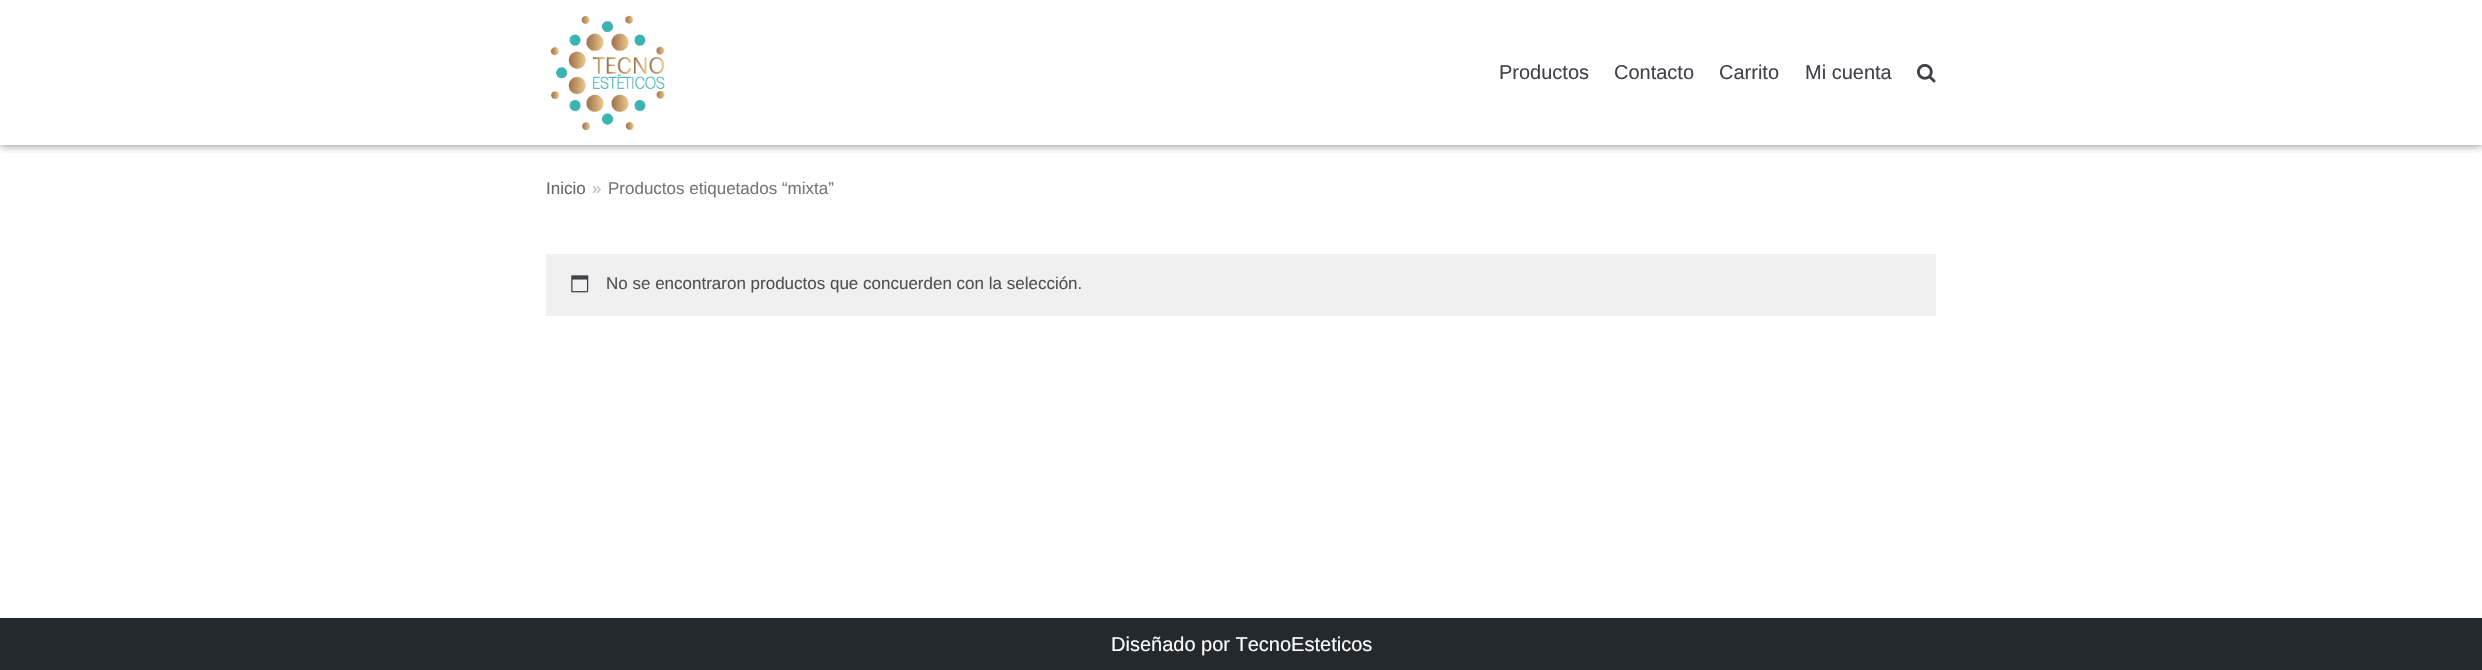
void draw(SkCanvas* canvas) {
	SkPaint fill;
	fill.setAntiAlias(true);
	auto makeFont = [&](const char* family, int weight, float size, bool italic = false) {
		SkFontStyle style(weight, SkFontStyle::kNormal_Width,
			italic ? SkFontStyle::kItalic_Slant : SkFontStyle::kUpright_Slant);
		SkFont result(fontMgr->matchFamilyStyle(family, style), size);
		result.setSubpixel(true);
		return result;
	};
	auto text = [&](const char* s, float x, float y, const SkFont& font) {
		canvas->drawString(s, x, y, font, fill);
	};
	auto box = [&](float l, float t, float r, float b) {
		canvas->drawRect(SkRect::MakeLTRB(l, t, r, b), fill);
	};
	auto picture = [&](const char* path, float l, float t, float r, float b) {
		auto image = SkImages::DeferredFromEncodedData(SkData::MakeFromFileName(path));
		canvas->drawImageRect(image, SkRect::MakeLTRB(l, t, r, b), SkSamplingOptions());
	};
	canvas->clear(0xFFFFFFFF);
	canvas->save();
	canvas->clipRect(SkRect::MakeLTRB(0, 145, 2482, 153));
	fill.setColor(0x80000000);
	fill.setMaskFilter(SkMaskFilter::MakeBlur(kNormal_SkBlurStyle, 4.5f));
	canvas->drawRect(SkRect::MakeLTRB(0, 0, 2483, 145), fill);
	fill.setMaskFilter(nullptr);
	canvas->restore();
	picture("image0.png", 550, 15, 665, 131);
	picture("image1.png", 1917, 63, 1936, 83);
	fill.setColor(0xFFF0F0F0);
	box(546, 254, 1936, 316);
	picture("image2.png", 571, 275, 589, 293);
	fill.setColor(0xFF24292E);
	box(0, 618, 2482, 670);
	auto font1 = makeFont("Liberation Sans", 400, 20);
	fill.setColor(0xFF404248);
	text("Productos", 1499, 79, font1);
	text("Contacto", 1614, 79, font1);
	text("Carrito", 1719, 79, font1);
	text("Mi cuenta", 1805, 79, font1);
	auto font2 = makeFont("Liberation Sans", 400, 17);
	fill.setColor(0xFF676767);
	text("Inicio", 546, 194, font2);
	fill.setColor(0xFFBBBBBB);
	text("»", 592, 194, font2);
	fill.setColor(0xFF767676);
	text("Productos etiquetados “mixta”", 608, 194, font2);
	fill.setColor(0xFF515151);
	text("No se encontraron productos que concuerden con la selección.", 606, 289, font2);
	fill.setColor(0xFFFDFDFD);
	text("Diseñado por TecnoEsteticos", 1111, 651, font1);
}
